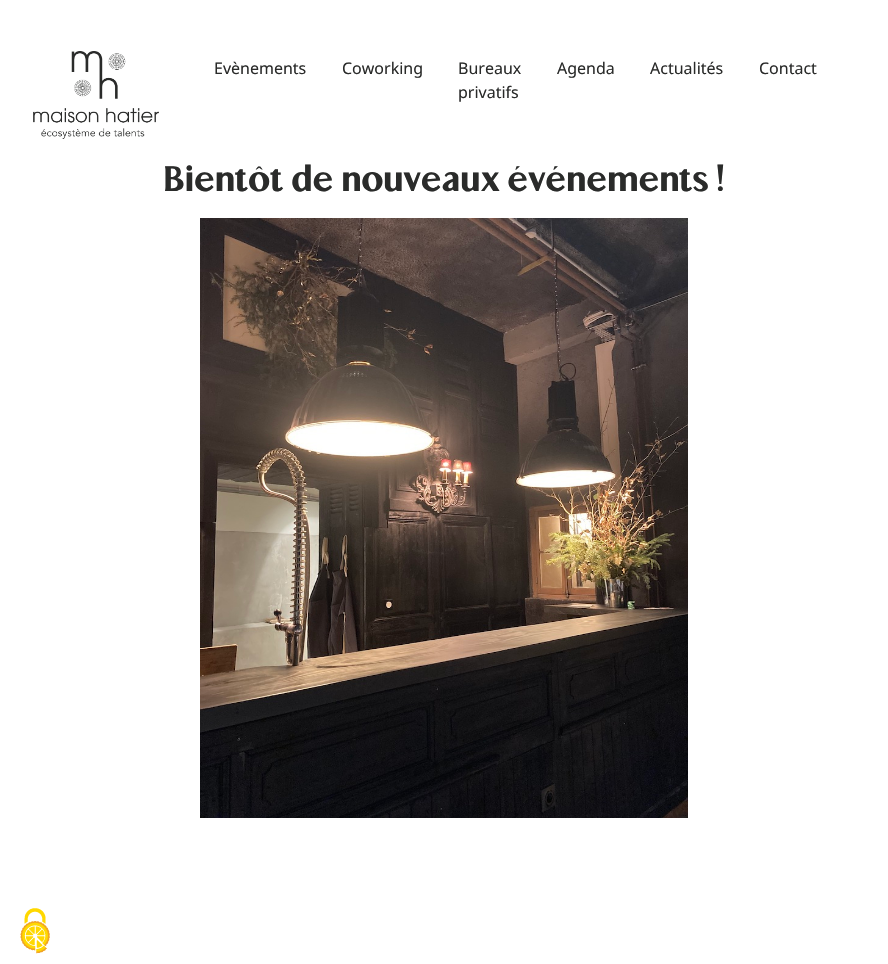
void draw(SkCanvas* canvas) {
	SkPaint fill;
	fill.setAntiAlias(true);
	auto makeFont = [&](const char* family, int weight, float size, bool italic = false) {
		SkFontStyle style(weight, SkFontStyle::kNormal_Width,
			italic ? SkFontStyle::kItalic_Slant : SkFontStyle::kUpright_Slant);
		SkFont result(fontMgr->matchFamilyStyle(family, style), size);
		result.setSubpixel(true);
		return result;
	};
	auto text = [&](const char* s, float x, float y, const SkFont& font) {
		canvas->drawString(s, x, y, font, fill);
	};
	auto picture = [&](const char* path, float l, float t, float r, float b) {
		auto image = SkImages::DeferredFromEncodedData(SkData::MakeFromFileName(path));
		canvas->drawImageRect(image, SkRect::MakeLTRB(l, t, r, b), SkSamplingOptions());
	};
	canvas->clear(0xFFFFFFFF);
	picture("image0.png", 33, 51, 159, 139);
	picture("image1.png", 200, 218, 688, 818);
	picture("image2.png", 20, 908, 50, 954);
	auto font1 = makeFont("Noto Sans", 400, 16);
	fill.setColor(0xFF2A2B2A);
	text("Evènements", 214, 74, font1);
	text("Coworking", 342, 74, font1);
	text("Bureaux", 458, 74, font1);
	text("privatifs", 458, 98, font1);
	text("Agenda", 557, 74, font1);
	text("Actualités", 650, 74, font1);
	text("Contact", 759, 74, font1);
	auto font2 = makeFont("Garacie", 500, 35.3f);
	text("Bientôt de nouveaux événements !", 163, 191, font2);
}
